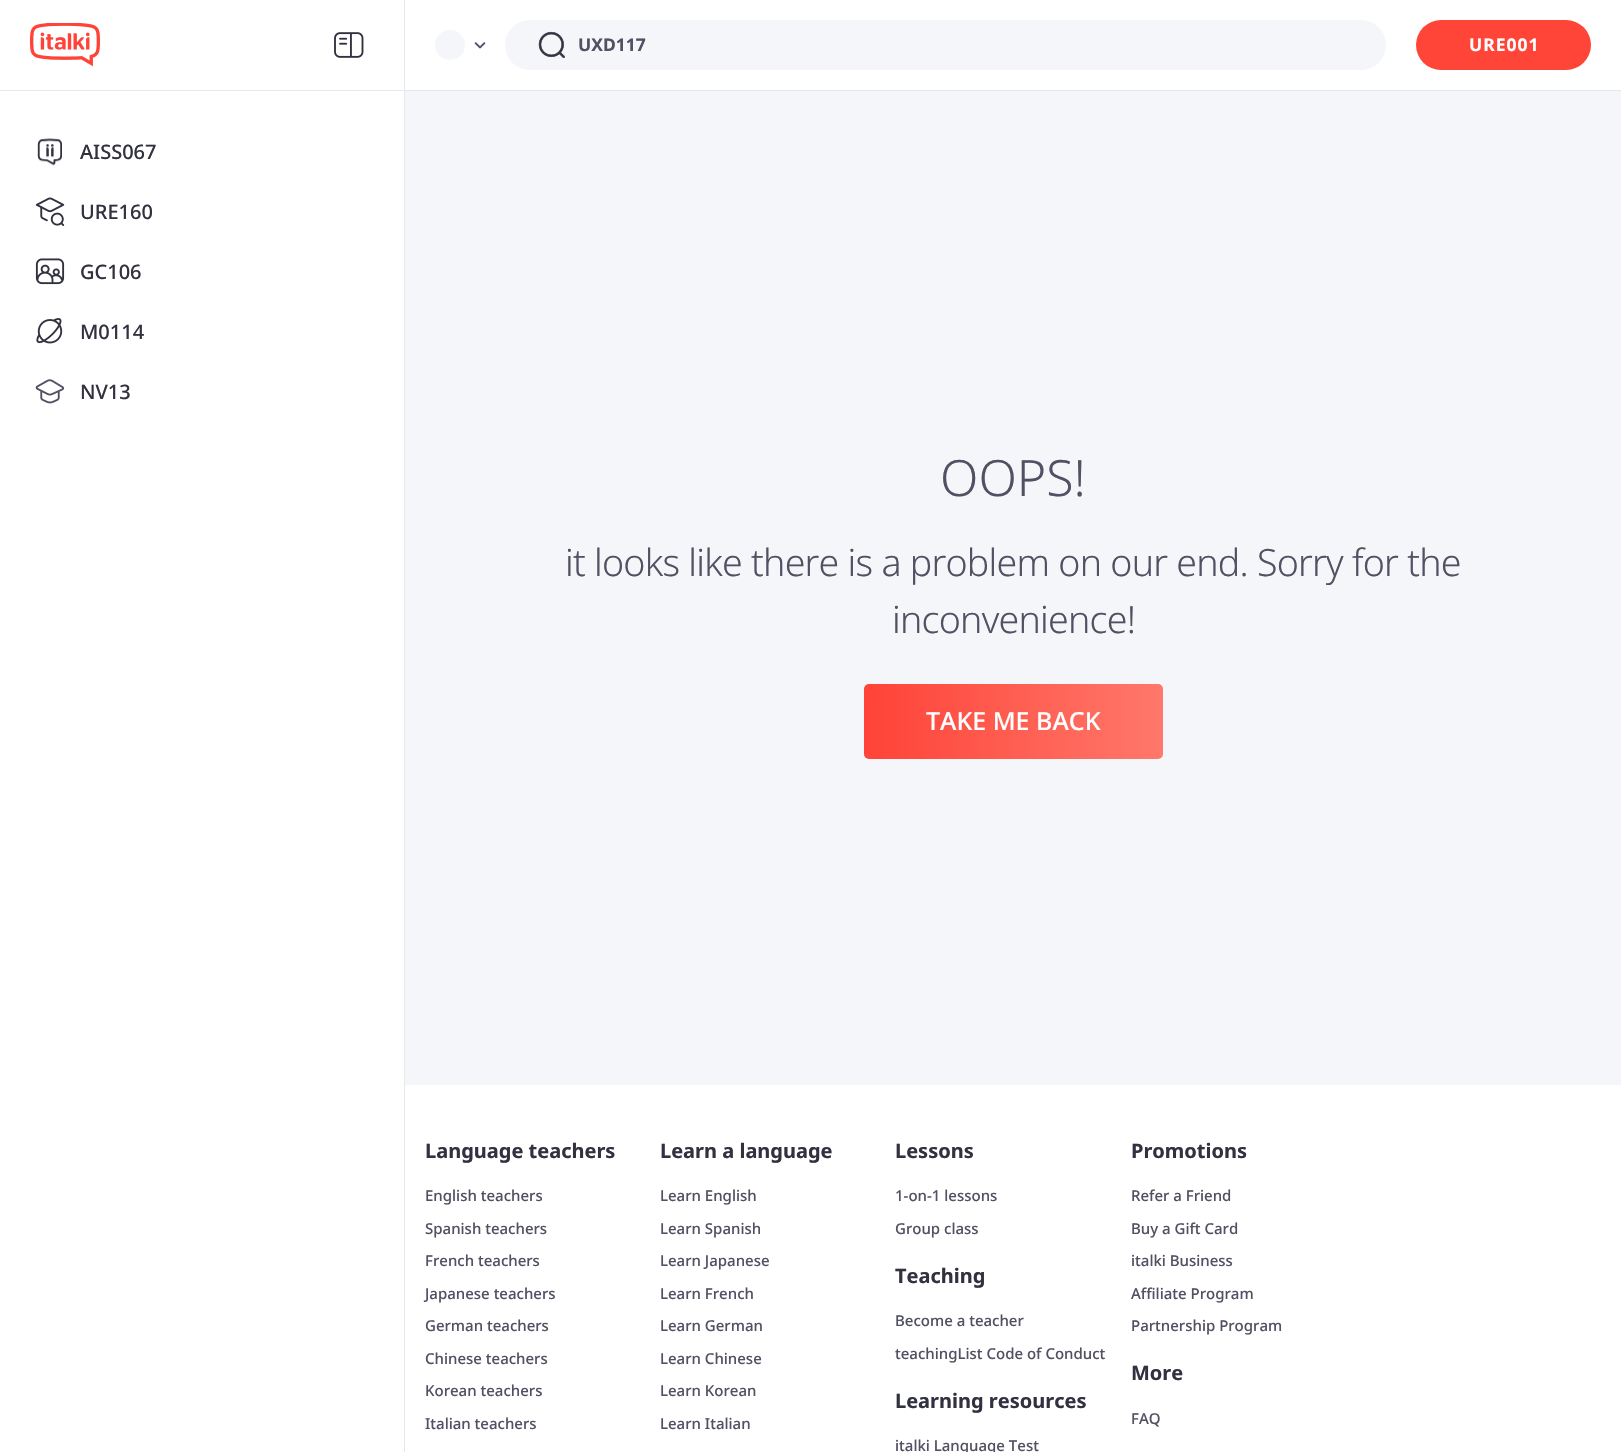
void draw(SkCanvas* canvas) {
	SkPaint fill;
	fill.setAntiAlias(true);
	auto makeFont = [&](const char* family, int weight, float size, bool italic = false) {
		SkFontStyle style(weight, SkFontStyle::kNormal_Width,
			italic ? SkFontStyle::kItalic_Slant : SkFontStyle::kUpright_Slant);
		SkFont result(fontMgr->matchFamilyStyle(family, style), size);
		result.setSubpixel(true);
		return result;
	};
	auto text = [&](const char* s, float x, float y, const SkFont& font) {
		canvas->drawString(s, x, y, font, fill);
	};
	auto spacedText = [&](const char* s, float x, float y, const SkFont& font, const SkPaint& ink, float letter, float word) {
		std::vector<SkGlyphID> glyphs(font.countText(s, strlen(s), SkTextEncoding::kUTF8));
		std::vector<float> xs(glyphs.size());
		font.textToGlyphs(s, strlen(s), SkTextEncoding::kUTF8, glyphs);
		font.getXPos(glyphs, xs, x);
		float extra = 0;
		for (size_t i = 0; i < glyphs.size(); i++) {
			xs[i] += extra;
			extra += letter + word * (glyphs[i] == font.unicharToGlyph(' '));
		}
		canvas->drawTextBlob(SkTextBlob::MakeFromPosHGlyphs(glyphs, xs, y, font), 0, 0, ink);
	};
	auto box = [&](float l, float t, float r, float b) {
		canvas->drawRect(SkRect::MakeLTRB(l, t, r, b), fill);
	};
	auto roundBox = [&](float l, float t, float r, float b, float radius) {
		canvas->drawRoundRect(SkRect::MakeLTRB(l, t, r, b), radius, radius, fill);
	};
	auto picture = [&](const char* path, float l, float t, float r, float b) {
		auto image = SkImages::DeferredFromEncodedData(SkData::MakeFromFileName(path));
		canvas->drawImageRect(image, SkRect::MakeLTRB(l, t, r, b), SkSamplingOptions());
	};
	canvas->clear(0xFFF5F6F9);
	fill.setColor(0xFFFFFFFF);
	box(0, 0, 404, 1452);
	fill.setColor(0xFFE5E8ED);
	box(404, 0, 405, 1452);
	box(0, 90, 404, 91);
	picture("image0.png", 30, 23, 100, 67);
	picture("image1.png", 334, 32, 364, 58);
	picture("image2.png", 37, 138, 62, 166);
	picture("image3.png", 35, 197, 65, 226);
	picture("image4.png", 35, 258, 65, 285);
	picture("image5.png", 36, 318, 63, 344);
	picture("image6.png", 35, 379, 65, 404);
	fill.setColor(0xFFFFFFFF);
	box(405, 0, 1621, 90);
	fill.setColor(0xFFE5E8ED);
	box(405, 90, 1621, 91);
	fill.setColor(0xFFF5F6F9);
	canvas->drawCircle(450, 45, 15, fill);
	picture("image7.png", 474, 42, 486, 49);
	roundBox(505, 20, 1386, 70, 25);
	picture("image8.png", 538, 31, 565, 59);
	fill.setColor(0xFFFF4438);
	roundBox(1416, 20, 1591, 70, 25);
	{
		const SkColor colors[] = {0xFFFF4338, 0xFFFF786B};
		const float stops[] = {0, 1};
		const SkPoint ends[] = {{864, 721}, {1163, 721}};
		fill.setShader(SkGradientShader::MakeLinear(ends, colors, stops, 2, SkTileMode::kClamp));
		fill.setAlpha(255);
	}
	roundBox(864, 684, 1163, 759, 5);
	fill.setShader(nullptr);
	fill.setColor(0xFFFFFFFF);
	box(405, 1085, 1621, 1452);
	auto font1 = makeFont("Noto Sans", 500, 20);
	fill.setColor(0xFF313140);
	text("AISS067", 80, 159, font1);
	text("URE160", 80, 219, font1);
	text("GC106", 80, 279, font1);
	text("M0114", 80, 339, font1);
	text("NV13", 80, 399, font1);
	auto font2 = makeFont("Noto Sans", 700, 17.5f);
	fill.setColor(0xFF515164);
	text("UXD117", 578, 51, font2);
	fill.setColor(0xFFFFFFFF);
	spacedText("URE001", 1469, 51, font2, fill, 1, 0);
	auto font3 = makeFont("Noto Sans", 300, 50);
	fill.setColor(0xFF515164);
	text("OOPS!", 940, 496, font3);
	auto font4 = makeFont("Noto Sans", 300, 37.5f);
	spacedText("it looks like there is a problem on our end. Sorry for the", 565, 576, font4, fill, -0.75f, 0);
	spacedText("inconvenience!", 892, 633, font4, fill, -0.75f, 0);
	auto font5 = makeFont("Noto Sans", 500, 25);
	fill.setColor(0xFFFFFFFF);
	text("TAKE ME BACK", 926, 730, font5);
	auto font6 = makeFont("Noto Sans", 700, 20);
	fill.setColor(0xFF313140);
	text("Language teachers", 425, 1158, font6);
	auto font7 = makeFont("Noto Sans", 500, 15);
	fill.setColor(0xFF515164);
	text("English teachers", 425, 1201, font7);
	text("Spanish teachers", 425, 1234, font7);
	text("French teachers", 425, 1266, font7);
	text("Japanese teachers", 425, 1299, font7);
	text("German teachers", 425, 1331, font7);
	text("Chinese teachers", 425, 1364, font7);
	text("Korean teachers", 425, 1396, font7);
	text("Italian teachers", 425, 1429, font7);
	fill.setColor(0xFF313140);
	text("Learn a language", 660, 1158, font6);
	fill.setColor(0xFF515164);
	text("Learn English", 660, 1201, font7);
	text("Learn Spanish", 660, 1234, font7);
	text("Learn Japanese", 660, 1266, font7);
	text("Learn French", 660, 1299, font7);
	text("Learn German", 660, 1331, font7);
	text("Learn Chinese", 660, 1364, font7);
	text("Learn Korean", 660, 1396, font7);
	text("Learn Italian", 660, 1429, font7);
	fill.setColor(0xFF313140);
	text("Lessons", 895, 1158, font6);
	fill.setColor(0xFF515164);
	text("1-on-1 lessons", 895, 1201, font7);
	text("Group class", 895, 1234, font7);
	fill.setColor(0xFF313140);
	text("Teaching", 895, 1283, font6);
	fill.setColor(0xFF515164);
	text("Become a teacher", 895, 1326, font7);
	text("teachingList Code of Conduct", 895, 1359, font7);
	fill.setColor(0xFF313140);
	text("Learning resources", 895, 1408, font6);
	fill.setColor(0xFF515164);
	text("italki Language Test", 895, 1451, font7);
	fill.setColor(0xFF313140);
	text("Promotions", 1131, 1158, font6);
	fill.setColor(0xFF515164);
	text("Refer a Friend", 1131, 1201, font7);
	text("Buy a Gift Card", 1131, 1234, font7);
	text("italki Business", 1131, 1266, font7);
	text("Affiliate Program", 1131, 1299, font7);
	text("Partnership Program", 1131, 1331, font7);
	fill.setColor(0xFF313140);
	text("More", 1131, 1380, font6);
	fill.setColor(0xFF515164);
	text("FAQ", 1131, 1424, font7);
}
